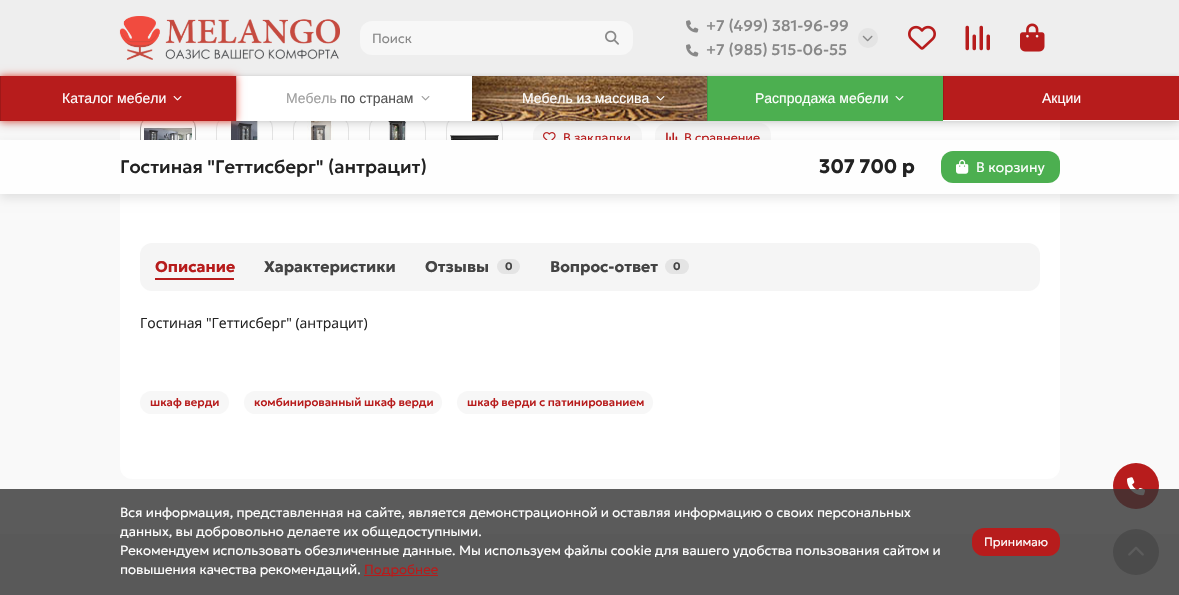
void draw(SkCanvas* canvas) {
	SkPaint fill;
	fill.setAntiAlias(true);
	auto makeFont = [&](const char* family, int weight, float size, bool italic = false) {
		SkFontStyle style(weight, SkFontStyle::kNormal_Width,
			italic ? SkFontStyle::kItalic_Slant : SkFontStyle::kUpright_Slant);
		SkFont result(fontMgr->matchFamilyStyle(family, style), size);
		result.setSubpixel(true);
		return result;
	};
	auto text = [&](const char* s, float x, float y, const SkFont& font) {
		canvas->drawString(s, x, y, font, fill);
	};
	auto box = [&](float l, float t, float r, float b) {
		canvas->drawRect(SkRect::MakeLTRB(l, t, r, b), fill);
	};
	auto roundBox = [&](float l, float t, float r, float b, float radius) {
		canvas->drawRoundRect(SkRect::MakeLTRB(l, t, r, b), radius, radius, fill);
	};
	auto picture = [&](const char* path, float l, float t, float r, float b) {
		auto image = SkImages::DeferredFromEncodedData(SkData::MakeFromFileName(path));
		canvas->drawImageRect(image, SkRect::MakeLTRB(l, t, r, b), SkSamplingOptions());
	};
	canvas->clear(0xFFF9F9F9);
	fill.setColor(0xFFFFFFFF);
	roundBox(120, -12, 1060, 479, 12);
	fill.setStyle(SkPaint::kStroke_Style);
	fill.setStrokeWidth(1);
	fill.setColor(0xFFAAAAAA);
	canvas->drawRoundRect(SkRect::MakeLTRB(140.5f, 116.5f, 195.5f, 172.5f), 11.5f, 11.5f, fill);
	picture("image12.png", 144, 127, 192, 140);
	fill.setColor(0xFFE6E6E6);
	canvas->drawRoundRect(SkRect::MakeLTRB(216.5f, 116.5f, 272.5f, 172.5f), 11.5f, 11.5f, fill);
	picture("image13.png", 230, 121, 259, 140);
	canvas->drawRoundRect(SkRect::MakeLTRB(293.5f, 116.5f, 348.5f, 172.5f), 11.5f, 11.5f, fill);
	picture("image14.png", 307, 121, 334, 140);
	canvas->drawRoundRect(SkRect::MakeLTRB(369.5f, 116.5f, 425.5f, 172.5f), 11.5f, 11.5f, fill);
	picture("image15.png", 388, 121, 407, 140);
	canvas->drawRoundRect(SkRect::MakeLTRB(446.5f, 116.5f, 502.5f, 172.5f), 11.5f, 11.5f, fill);
	picture("image16.png", 450, 135, 499, 140);
	fill.setStyle(SkPaint::kFill_Style);
	fill.setColor(0xFFF7F7F7);
	roundBox(533, 123, 642, 153, 12);
	picture("image17.png", 543, 132, 556, 140);
	roundBox(655, 123, 771, 153, 12);
	picture("image18.png", 666, 132, 678, 140);
	fill.setColor(0x26000000);
	fill.setMaskFilter(SkMaskFilter::MakeBlur(kNormal_SkBlurStyle, 5));
	canvas->drawRect(SkRect::MakeLTRB(0, -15, 1179, 124), fill);
	fill.setMaskFilter(nullptr);
	fill.setColor(0xFFEEEEEE);
	box(0, 0, 1179, 76);
	picture("image0.png", 119, 16, 340, 60);
	fill.setColor(0xFFF7F7F7);
	roundBox(360, 21, 633, 55, 12);
	picture("image1.png", 605, 30, 619, 45);
	picture("image2.png", 686, 20, 699, 33);
	fill.setColor(0xFFE4E4E4);
	canvas->drawCircle(868, 38, 10, fill);
	picture("image3.png", 862, 35, 873, 42);
	picture("image2.png", 686, 44, 699, 57);
	picture("image4.png", 908, 25, 936, 50);
	picture("image5.png", 965, 25, 990, 51);
	picture("image6.png", 1020, 23, 1045, 52);
	fill.setColor(0x29000000);
	fill.setMaskFilter(SkMaskFilter::MakeBlur(kNormal_SkBlurStyle, 2));
	canvas->drawRect(SkRect::MakeLTRB(0, 76, 1179, 120), fill);
	fill.setMaskFilter(nullptr);
	fill.setColor(0xFFFFFFFF);
	box(236, 76, 1179, 121);
	fill.setColor(0xFFF05545);
	fill.setMaskFilter(SkMaskFilter::MakeBlur(kNormal_SkBlurStyle, 4));
	canvas->drawRect(SkRect::MakeLTRB(0, 76, 236, 121), fill);
	fill.setMaskFilter(nullptr);
	fill.setColor(0xFFB71C1C);
	box(1, 76, 236, 121);
	fill.setColor(0xFF9F1818);
	box(0, 76, 1, 121);
	picture("image7.png", 173, 96, 182, 101);
	fill.setColor(0x21000000);
	box(236, 76, 237, 121);
	picture("image8.png", 421, 96, 430, 101);
	picture("image9.png", 472, 76, 707, 121);
	box(472, 76, 473, 121);
	picture("image10.png", 656, 96, 665, 101);
	fill.setColor(0xFF4CAF50);
	box(708, 76, 943, 121);
	fill.setColor(0xFF429846);
	box(707, 76, 708, 121);
	picture("image11.png", 895, 96, 904, 101);
	fill.setColor(0xFFB71C1C);
	box(944, 76, 1179, 120);
	fill.setColor(0xFF9F1818);
	box(943, 76, 944, 120);
	fill.setColor(0xFFF5F5F5);
	roundBox(140, 243, 1040, 291, 12);
	fill.setColor(0xFFB71C1C);
	box(155, 278, 234, 280);
	fill.setColor(0xFFE4E4E4);
	roundBox(497, 259, 520, 274, 7.5f);
	roundBox(665, 259, 689, 274, 7.5f);
	fill.setColor(0xFFF7F7F7);
	roundBox(140, 391, 229, 414, 11.5f);
	roundBox(244, 391, 442, 414, 11.5f);
	roundBox(457, 391, 653, 414, 11.5f);
	fill.setColor(0xFFB71C1C);
	canvas->drawCircle(1136, 486, 23, fill);
	picture("image19.png", 1127, 477, 1145, 496);
	fill.setColor(0xFFEEEEEE);
	box(0, 534, 1179, 595);
	fill.setColor(0x4D000000);
	canvas->drawCircle(1136, 552, 23, fill);
	picture("image20.png", 1128, 546, 1144, 556);
	fill.setColor(0xCC333333);
	box(0, 489, 1179, 595);
	fill.setColor(0xFFB71C1C);
	box(364, 575, 438, 576);
	roundBox(972, 528, 1060, 556, 12);
	fill.setColor(0x1A000000);
	fill.setMaskFilter(SkMaskFilter::MakeBlur(kNormal_SkBlurStyle, 5));
	canvas->drawRect(SkRect::MakeLTRB(0, 144, 1179, 198), fill);
	fill.setMaskFilter(nullptr);
	auto font1 = makeFont("Geologica", 300, 13.3f);
	fill.setColor(0xFF888888);
	text("Поиск", 372, 43, font1);
	auto font2 = makeFont("Geologica", 500, 15.5f);
	text("+7 (499) 381-96-99", 706, 31, font2);
	text("+7 (985) 515-06-55", 706, 55, font2);
	auto font3 = makeFont("Liberation Sans", 400, 14);
	fill.setColor(0xFFFFFFFF);
	text("Каталог мебели", 62, 103, font3);
	fill.setColor(0xFF9E9E9E);
	text("Мебель", 286, 103, font3);
	fill.setColor(0xFF555555);
	text("по странам", 340, 103, font3);
	fill.setColor(0xFFFFFFFF);
	text("Мебель из массива", 522, 103, font3);
	text("Распродажа мебели", 755, 103, font3);
	text("Акции", 1042, 103, font3);
	auto font4 = makeFont("Geologica", 300, 12.5f);
	fill.setColor(0xFFB71C1C);
	text("В закладки", 563, 142, font4);
	text("В сравнение", 684, 142, font4);
	auto font5 = makeFont("Geologica", 700, 15.5f);
	text("Описание", 155, 272, font5);
	fill.setColor(0xFF444444);
	text("Характеристики", 264, 272, font5);
	text("Отзывы", 425, 272, font5);
	auto font6 = makeFont("Geologica", 700, 11);
	text("0", 505, 270, font6);
	text("Вопрос-ответ", 550, 272, font5);
	text("0", 673, 270, font6);
	auto font7 = makeFont("Open Sans", 400, 14);
	fill.setColor(0xFF222222);
	text("Гостиная \"Геттисберг\" (антрацит)", 140, 328, font7);
	auto font8 = makeFont("Geologica", 500, 11.25f);
	fill.setColor(0xFFB71C1C);
	text("шкаф верди", 150, 406, font8);
	text("комбинированный шкаф верди", 254, 406, font8);
	text("шкаф верди с патинированием", 467, 406, font8);
	fill.setColor(0xFFFFFFFF);
	text("Вся информация, представленная на сайте, является демонстрационной и оставляя информацию о своих персональных", 120, 517, font1);
	text("данных, вы добровольно делаете их общедоступными.", 120, 536, font1);
	text("Рекомендуем использовать обезличенные данные. Мы используем файлы cookie для вашего удобства пользования сайтом и", 120, 555, font1);
	text("повышения качества рекомендаций.", 120, 574, font1);
	fill.setColor(0xFFB71C1C);
	text("Подробнее", 364, 574, font1);
	auto font9 = makeFont("Geologica", 300, 12);
	fill.setColor(0xFFFFFFFF);
	text("Принимаю", 984, 546, font9);
	fill.setColor(0xFFFEFEFE);
	box(0, 140, 1179, 194);
	auto font10 = makeFont("Geologica", 500, 18.25f);
	fill.setColor(0xFF222222);
	text("Гостиная \"Геттисберг\" (антрацит)", 120, 173, font10);
	auto font11 = makeFont("Geologica", 700, 19.5f);
	text("307 700 р", 819, 173, font11);
	fill.setColor(0xFF4CAF50);
	roundBox(941, 151, 1060, 183, 12);
	picture("image21.png", 956, 159, 969, 174);
	auto font12 = makeFont("Geologica", 300, 14);
	fill.setColor(0xFFFFFFFF);
	text("В корзину", 976, 172, font12);
}
